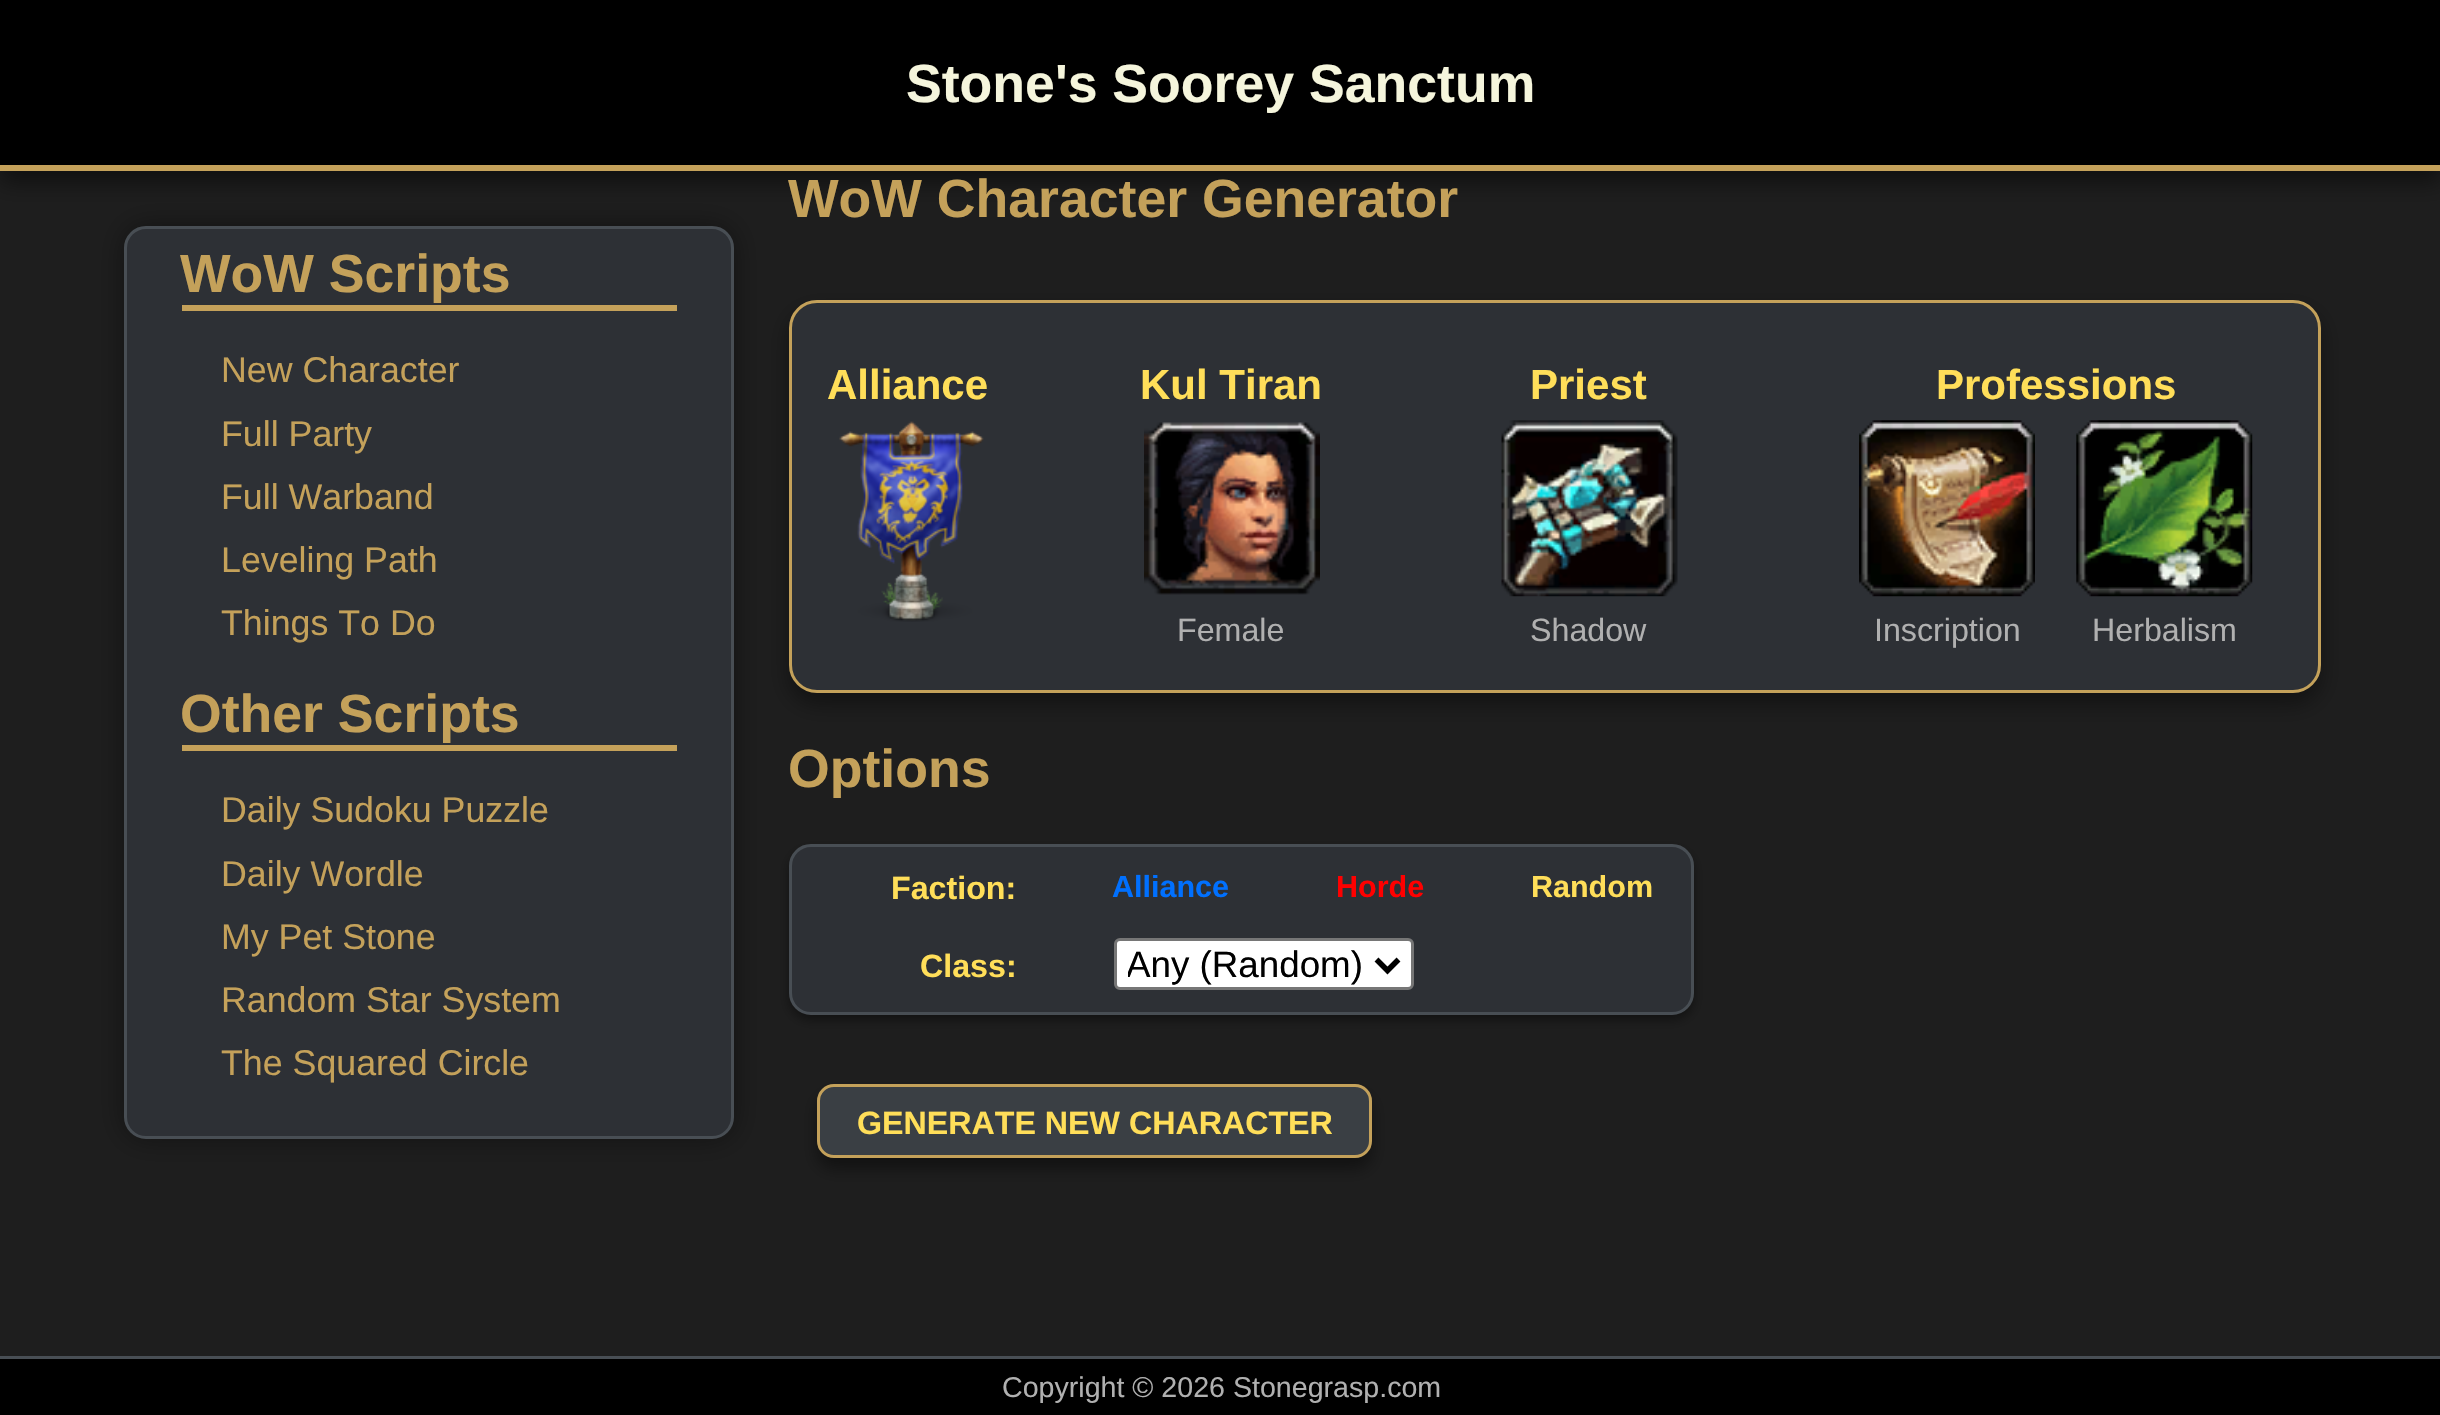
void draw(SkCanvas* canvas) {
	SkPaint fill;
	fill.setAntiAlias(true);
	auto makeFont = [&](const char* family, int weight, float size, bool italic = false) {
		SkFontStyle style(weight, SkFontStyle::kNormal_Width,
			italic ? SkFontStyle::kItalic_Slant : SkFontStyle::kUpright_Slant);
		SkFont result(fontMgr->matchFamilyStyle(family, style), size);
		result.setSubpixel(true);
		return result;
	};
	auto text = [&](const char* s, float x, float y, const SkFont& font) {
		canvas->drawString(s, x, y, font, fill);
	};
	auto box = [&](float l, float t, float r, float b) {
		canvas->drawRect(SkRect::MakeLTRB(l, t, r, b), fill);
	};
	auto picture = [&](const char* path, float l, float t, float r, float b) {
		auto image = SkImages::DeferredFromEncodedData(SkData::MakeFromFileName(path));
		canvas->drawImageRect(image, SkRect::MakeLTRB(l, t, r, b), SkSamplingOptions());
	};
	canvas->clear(0xFF1E1E1E);
	fill.setColor(0x80000000);
	fill.setMaskFilter(SkMaskFilter::MakeBlur(kNormal_SkBlurStyle, 11));
	canvas->drawRect(SkRect::MakeLTRB(0, 11, 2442, 182), fill);
	fill.setMaskFilter(nullptr);
	fill.setColor(0xFF000000);
	box(0, 0, 2440, 165);
	fill.setColor(0xFFC4A15A);
	box(0, 165, 2440, 171);
	fill.setColor(0x66000000);
	fill.setMaskFilter(SkMaskFilter::MakeBlur(kNormal_SkBlurStyle, 14));
	canvas->drawRoundRect(SkRect::MakeLTRB(124, 226, 734, 1139), 22, 22, fill);
	fill.setMaskFilter(nullptr);
	fill.setColor(0xFF2D3035);
	canvas->drawRoundRect(SkRect::MakeLTRB(125.5f, 227.5f, 732.5f, 1137.5f), 20.5f, 20.5f, fill);
	fill.setStyle(SkPaint::kStroke_Style);
	fill.setStrokeWidth(3);
	fill.setColor(0xFF484E54);
	canvas->drawRoundRect(SkRect::MakeLTRB(125.5f, 227.5f, 732.5f, 1137.5f), 20.5f, 20.5f, fill);
	fill.setStyle(SkPaint::kFill_Style);
	fill.setColor(0xFFC4A15A);
	box(182, 305, 677, 311);
	box(182, 745, 677, 751);
	fill.setColor(0x66000000);
	fill.setMaskFilter(SkMaskFilter::MakeBlur(kNormal_SkBlurStyle, 11));
	canvas->drawRoundRect(SkRect::MakeLTRB(789, 311, 2321, 704), 28, 28, fill);
	fill.setMaskFilter(nullptr);
	fill.setColor(0xFF2D3035);
	canvas->drawRoundRect(SkRect::MakeLTRB(790.5f, 301.5f, 2319.5f, 691.5f), 26.5f, 26.5f, fill);
	fill.setStyle(SkPaint::kStroke_Style);
	fill.setColor(0xFFC4A15A);
	canvas->drawRoundRect(SkRect::MakeLTRB(790.5f, 301.5f, 2319.5f, 691.5f), 26.5f, 26.5f, fill);
	picture("image0.png", 839, 421, 984, 622);
	picture("image1.png", 1144, 422, 1320, 595);
	picture("image2.png", 1501, 420, 1678, 597);
	picture("image3.png", 1859, 420, 2035, 597);
	picture("image4.png", 2076, 420, 2253, 597);
	fill.setStyle(SkPaint::kFill_Style);
	fill.setColor(0x66000000);
	fill.setMaskFilter(SkMaskFilter::MakeBlur(kNormal_SkBlurStyle, 5.5f));
	canvas->drawRoundRect(SkRect::MakeLTRB(789, 850, 1694, 1020), 22, 22, fill);
	fill.setMaskFilter(nullptr);
	fill.setColor(0xFF2D3035);
	canvas->drawRoundRect(SkRect::MakeLTRB(790.5f, 845.5f, 1692.5f, 1013.5f), 20.5f, 20.5f, fill);
	fill.setStyle(SkPaint::kStroke_Style);
	fill.setColor(0xFF484E54);
	canvas->drawRoundRect(SkRect::MakeLTRB(790.5f, 845.5f, 1692.5f, 1013.5f), 20.5f, 20.5f, fill);
	fill.setStyle(SkPaint::kFill_Style);
	fill.setColor(0xFFFFFFFF);
	canvas->drawRoundRect(SkRect::MakeLTRB(1115.5f, 939.5f, 1412.5f, 988.5f), 4.5f, 4.5f, fill);
	fill.setStyle(SkPaint::kStroke_Style);
	fill.setColor(0xFF767676);
	canvas->drawRoundRect(SkRect::MakeLTRB(1115.5f, 939.5f, 1412.5f, 988.5f), 4.5f, 4.5f, fill);
	fill.setStrokeWidth(5.5f);
	fill.setColor(0xFF000000);
	canvas->drawPath(SkPathBuilder().moveTo(1376.5f, 959.5f).lineTo(1387.5f, 970.5f).lineTo(1398.5f, 959.5f).detach(), fill);
	fill.setStyle(SkPaint::kFill_Style);
	fill.setColor(0x66000000);
	fill.setMaskFilter(SkMaskFilter::MakeBlur(kNormal_SkBlurStyle, 8));
	canvas->drawRoundRect(SkRect::MakeLTRB(817, 1095, 1372, 1169), 17, 17, fill);
	fill.setMaskFilter(nullptr);
	fill.setColor(0xFF3A3F44);
	canvas->drawRoundRect(SkRect::MakeLTRB(818.5f, 1085.5f, 1370.5f, 1156.5f), 15.5f, 15.5f, fill);
	fill.setStyle(SkPaint::kStroke_Style);
	fill.setStrokeWidth(3);
	fill.setColor(0xFFC4A15A);
	canvas->drawRoundRect(SkRect::MakeLTRB(818.5f, 1085.5f, 1370.5f, 1156.5f), 15.5f, 15.5f, fill);
	fill.setStyle(SkPaint::kFill_Style);
	fill.setColor(0xFF000000);
	box(0, 1359, 2440, 1415);
	fill.setColor(0xFF484E54);
	box(0, 1356, 2440, 1359);
	auto font1 = makeFont("Liberation Sans", 700, 53.6f);
	fill.setColor(0xFFF5F5DC);
	text("Stone's Soorey Sanctum", 906, 102, font1);
	fill.setColor(0xFFC4A15A);
	text("WoW Scripts", 180, 292, font1);
	auto font2 = makeFont("Liberation Sans", 400, 35.75f);
	text("New Character", 221, 382, font2);
	text("Full Party", 221, 446, font2);
	text("Full Warband", 221, 509, font2);
	text("Leveling Path", 221, 572, font2);
	text("Things To Do", 221, 635, font2);
	text("Other Scripts", 180, 732, font1);
	text("Daily Sudoku Puzzle", 221, 822, font2);
	text("Daily Wordle", 221, 886, font2);
	text("My Pet Stone", 221, 949, font2);
	text("Random Star System", 221, 1012, font2);
	text("The Squared Circle", 221, 1075, font2);
	text("WoW Character Generator", 788, 217, font1);
	auto font3 = makeFont("Liberation Sans", 700, 42);
	fill.setColor(0xFFFFDE59);
	text("Alliance", 827, 399, font3);
	text("Kul Tiran", 1140, 399, font3);
	auto font4 = makeFont("Liberation Sans", 400, 32.2f);
	fill.setColor(0xFFB0B0B0);
	text("Female", 1177, 641, font4);
	fill.setColor(0xFFFFDE59);
	text("Priest", 1530, 399, font3);
	fill.setColor(0xFFB0B0B0);
	text("Shadow", 1530, 641, font4);
	fill.setColor(0xFFFFDE59);
	text("Professions", 1936, 399, font3);
	fill.setColor(0xFFB0B0B0);
	text("Inscription", 1874, 641, font4);
	text("Herbalism", 2092, 641, font4);
	fill.setColor(0xFFC4A15A);
	text("Options", 788, 787, font1);
	auto font5 = makeFont("Liberation Sans", 700, 32.2f);
	fill.setColor(0xFFFFDE59);
	text("Faction:", 891, 899, font5);
	auto font6 = makeFont("Liberation Sans", 700, 30.5f);
	fill.setColor(0xFF0070FF);
	text("Alliance", 1112, 897, font6);
	fill.setColor(0xFFFF0000);
	text("Horde", 1336, 897, font6);
	fill.setColor(0xFFFFDE59);
	text("Random", 1531, 897, font6);
	text("Class:", 920, 977, font5);
	canvas->save();
	canvas->clipRect(SkRect::MakeLTRB(1128, 941, 1367, 987));
	auto font7 = makeFont("Liberation Sans", 400, 36.75f);
	fill.setColor(0xFF000000);
	text("Any (Random)", 1126, 977, font7);
	canvas->restore();
	fill.setColor(0xFFFFDE59);
	text("GENERATE NEW CHARACTER", 857, 1134, font5);
	auto font8 = makeFont("Liberation Sans", 400, 28.6f);
	fill.setColor(0xFFB0B0B0);
	text("Copyright © 2026 Stonegrasp.com", 1002, 1397, font8);
}
